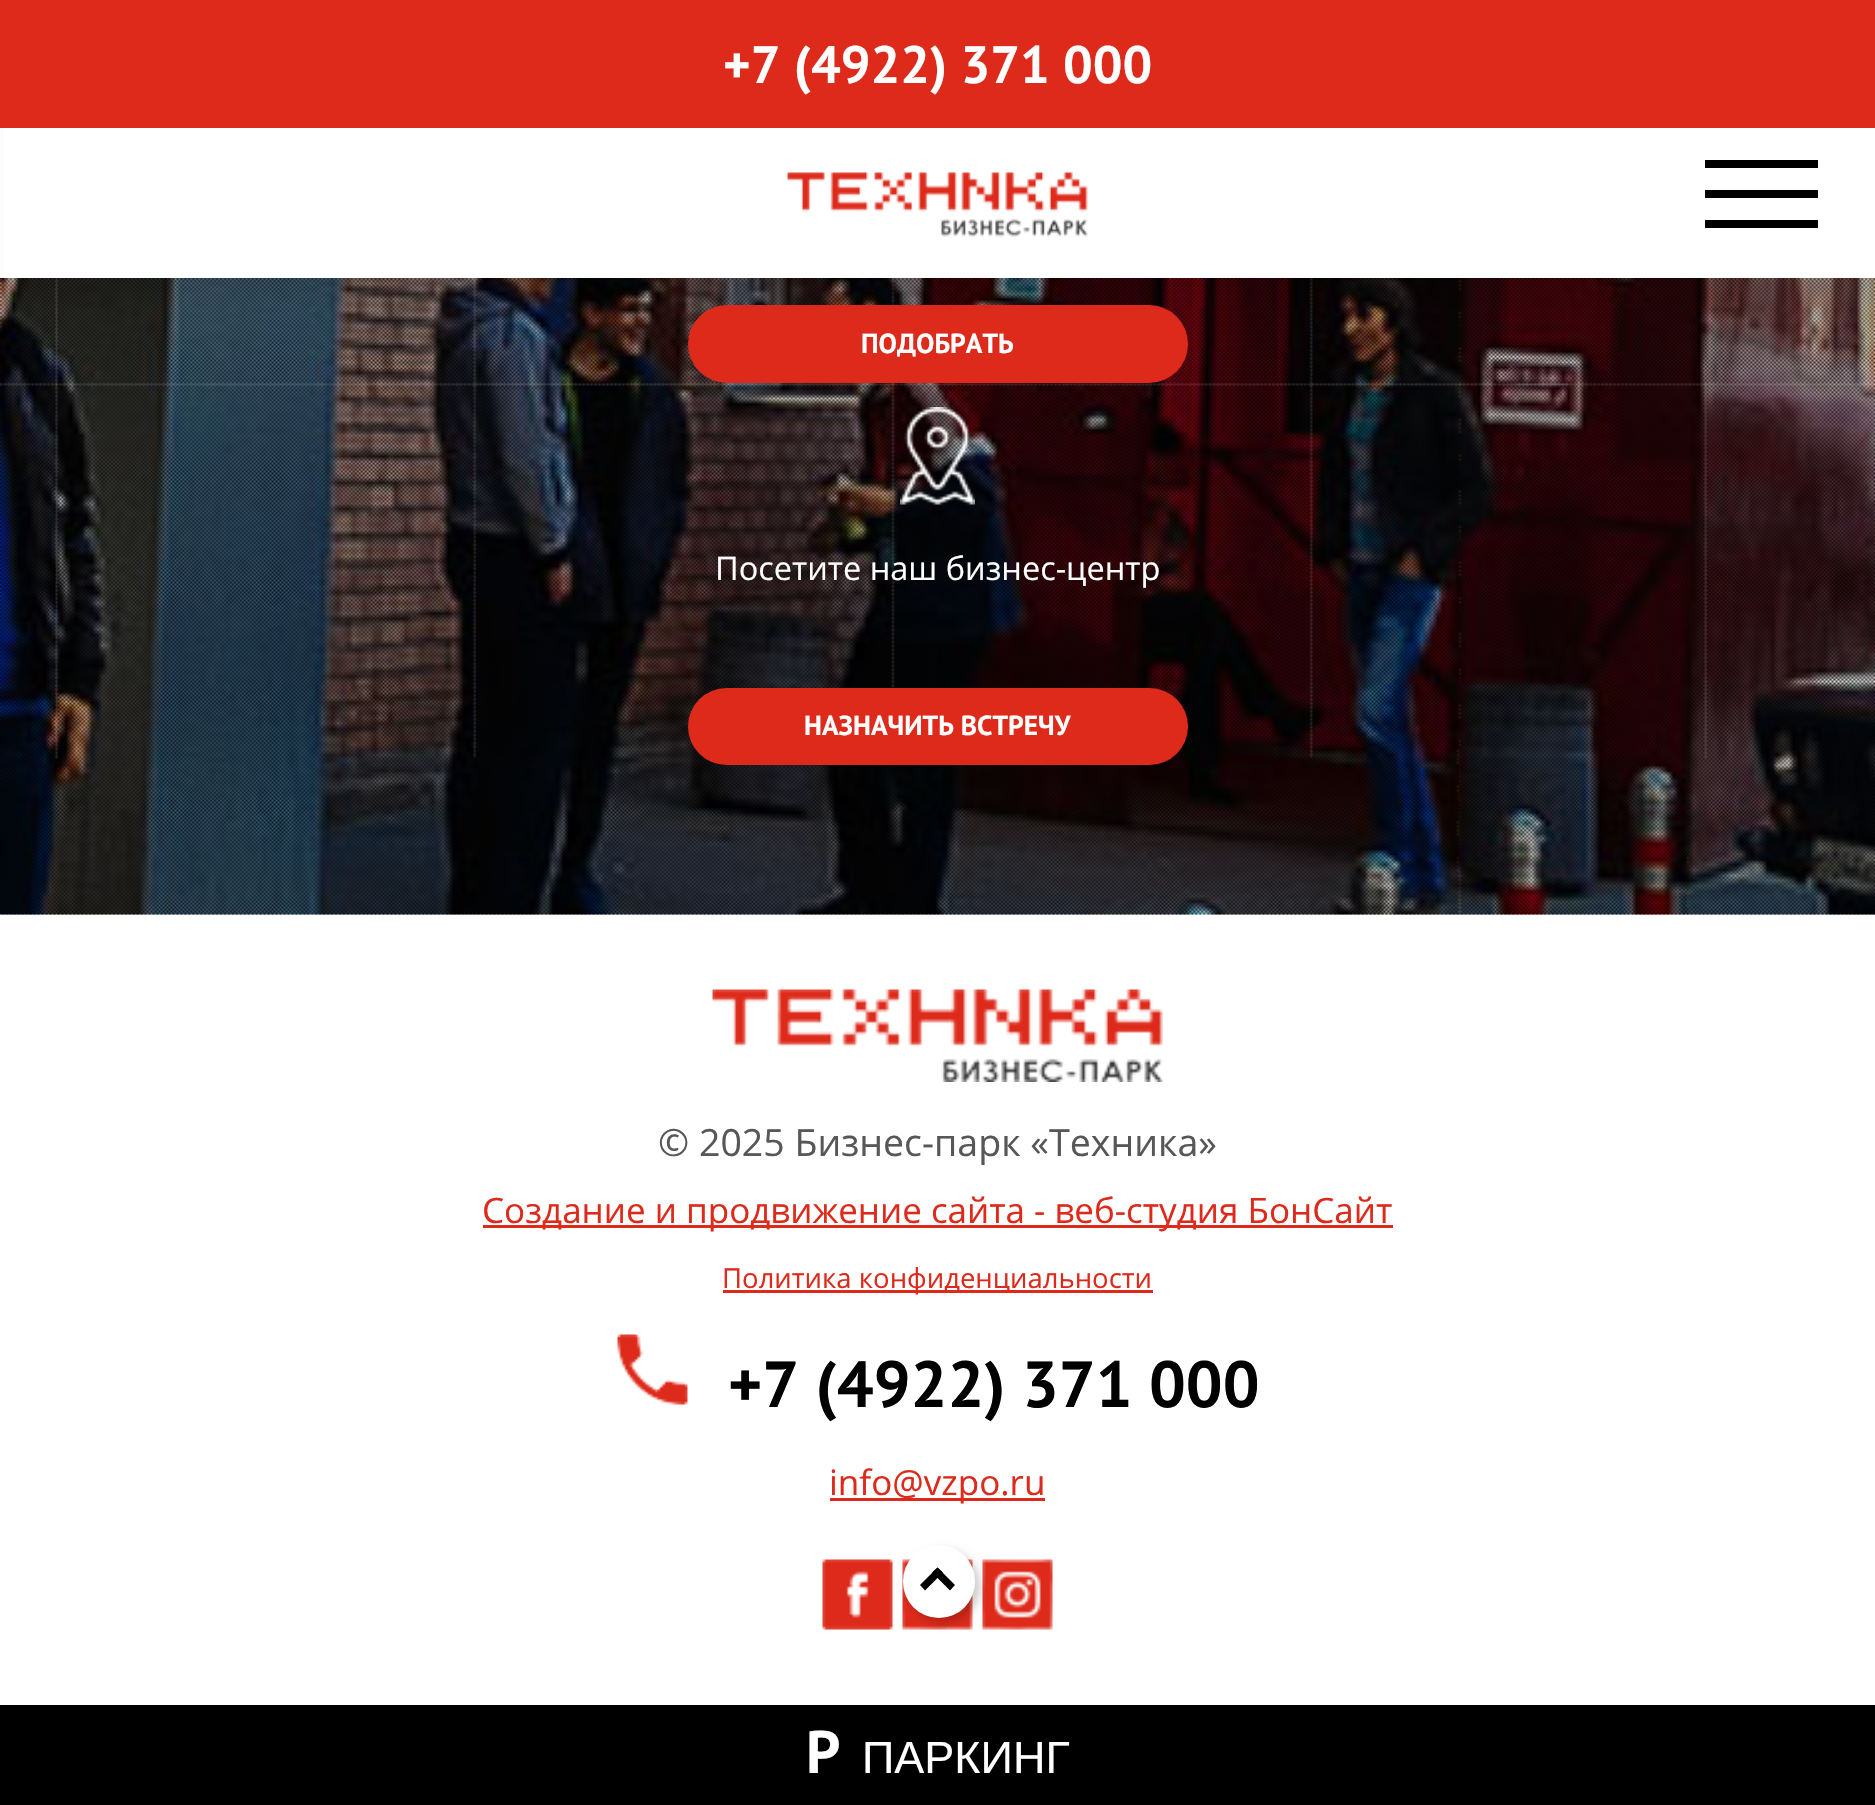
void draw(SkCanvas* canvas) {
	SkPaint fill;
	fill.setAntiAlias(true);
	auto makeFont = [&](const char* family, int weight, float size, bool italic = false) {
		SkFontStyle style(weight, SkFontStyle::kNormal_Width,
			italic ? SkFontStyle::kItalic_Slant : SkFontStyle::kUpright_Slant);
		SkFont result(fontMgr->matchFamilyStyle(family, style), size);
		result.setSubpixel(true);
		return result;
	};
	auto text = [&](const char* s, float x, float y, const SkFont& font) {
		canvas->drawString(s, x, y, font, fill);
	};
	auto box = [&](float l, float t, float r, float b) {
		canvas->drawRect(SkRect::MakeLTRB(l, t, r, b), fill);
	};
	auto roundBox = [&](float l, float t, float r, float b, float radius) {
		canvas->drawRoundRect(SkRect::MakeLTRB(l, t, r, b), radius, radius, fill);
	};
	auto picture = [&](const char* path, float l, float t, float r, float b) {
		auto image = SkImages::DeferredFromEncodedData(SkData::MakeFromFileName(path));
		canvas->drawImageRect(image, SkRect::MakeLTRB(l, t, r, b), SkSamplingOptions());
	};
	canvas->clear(0xFFFFFFFF);
	picture("image1.png", 0, 278, 1875, 915);
	picture("image2.png", 0, 278, 1875, 915);
	fill.setColor(0xFFDD2A1B);
	roundBox(688, 305, 1188, 383, 39);
	fill.setColor(0x14000000);
	fill.setMaskFilter(SkMaskFilter::MakeBlur(kNormal_SkBlurStyle, 10));
	canvas->drawRect(SkRect::MakeLTRB(15, 15, 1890, 293), fill);
	fill.setMaskFilter(nullptr);
	fill.setColor(0xFFFFFFFF);
	box(4, 128, 1875, 278);
	fill.setColor(0xFFDD2A1B);
	box(0, 0, 1875, 128);
	picture("image0.png", 787, 172, 1088, 237);
	fill.setColor(0xFF000000);
	box(1705, 160, 1818, 168);
	box(1705, 190, 1818, 198);
	box(1705, 220, 1818, 228);
	picture("image3.png", 900, 407, 975, 505);
	fill.setColor(0xFFDD2A1B);
	roundBox(688, 688, 1188, 765, 38.5f);
	picture("image4.png", 712, 989, 1163, 1082);
	box(483, 1225, 1393, 1228);
	box(723, 1290, 1153, 1293);
	picture("image5.png", 617, 1334, 688, 1405);
	box(830, 1498, 1045, 1501);
	picture("image6.png", 822, 1559, 893, 1630);
	picture("image7.png", 902, 1559, 973, 1630);
	picture("image8.png", 982, 1559, 1053, 1630);
	fill.setColor(0x33000000);
	fill.setMaskFilter(SkMaskFilter::MakeBlur(kNormal_SkBlurStyle, 4));
	canvas->drawRoundRect(SkRect::MakeLTRB(908, 1550, 980, 1623), 36, 36, fill);
	fill.setMaskFilter(nullptr);
	fill.setColor(0xFFFFFFFF);
	roundBox(903, 1545, 975, 1618, 36);
	fill.setColor(0xFF000000);
	canvas->drawPath(SkPathBuilder().moveTo(920, 1585).lineTo(937.5f, 1567.5f).lineTo(943, 1572.5f).lineTo(925, 1590.5f).close().detach(), fill);
	canvas->drawPath(SkPathBuilder().moveTo(932, 1572.5f).lineTo(937.5f, 1567.5f).lineTo(955, 1585).lineTo(950, 1590.5f).close().detach(), fill);
	box(0, 1705, 1875, 1805);
	auto font1 = makeFont("PT Sans", 700, 52.5f);
	fill.setColor(0xFFFFFFFF);
	text("+7 (4922) 371 000", 723, 83, font1);
	auto font2 = makeFont("PT Sans", 700, 27.5f);
	text("ПОДОБРАТЬ", 861, 353, font2);
	auto font3 = makeFont("Open Sans", 400, 32.5f);
	text("Посетите наш бизнес-центр", 715, 580, font3);
	text("НАЗНАЧИТЬ ВСТРЕЧУ", 804, 735, font2);
	auto font4 = makeFont("Open Sans", 400, 37.5f);
	fill.setColor(0xFF575757);
	text("© 2025 Бизнес-парк «Техника»", 658, 1156, font4);
	auto font5 = makeFont("Open Sans", 400, 35);
	fill.setColor(0xFFDD2A1B);
	text("Создание и продвижение сайта - веб-студия БонСайт", 482, 1223, font5);
	auto font6 = makeFont("Open Sans", 400, 27.5f);
	text("Политика конфиденциальности", 722, 1288, font6);
	auto font7 = makeFont("PT Sans", 700, 65);
	fill.setColor(0xFF010101);
	text("+7 (4922) 371 000", 728, 1407, font7);
	fill.setColor(0xFFDD2A1B);
	text("info@vzpo.ru", 829, 1495, font5);
	auto font8 = makeFont("PT Sans", 700, 60);
	fill.setColor(0xFFFFFFFF);
	text("P", 806, 1773, font8);
	auto font9 = makeFont("Liberation Sans", 400, 45);
	text("ПАРКИНГ", 862, 1773, font9);
}
